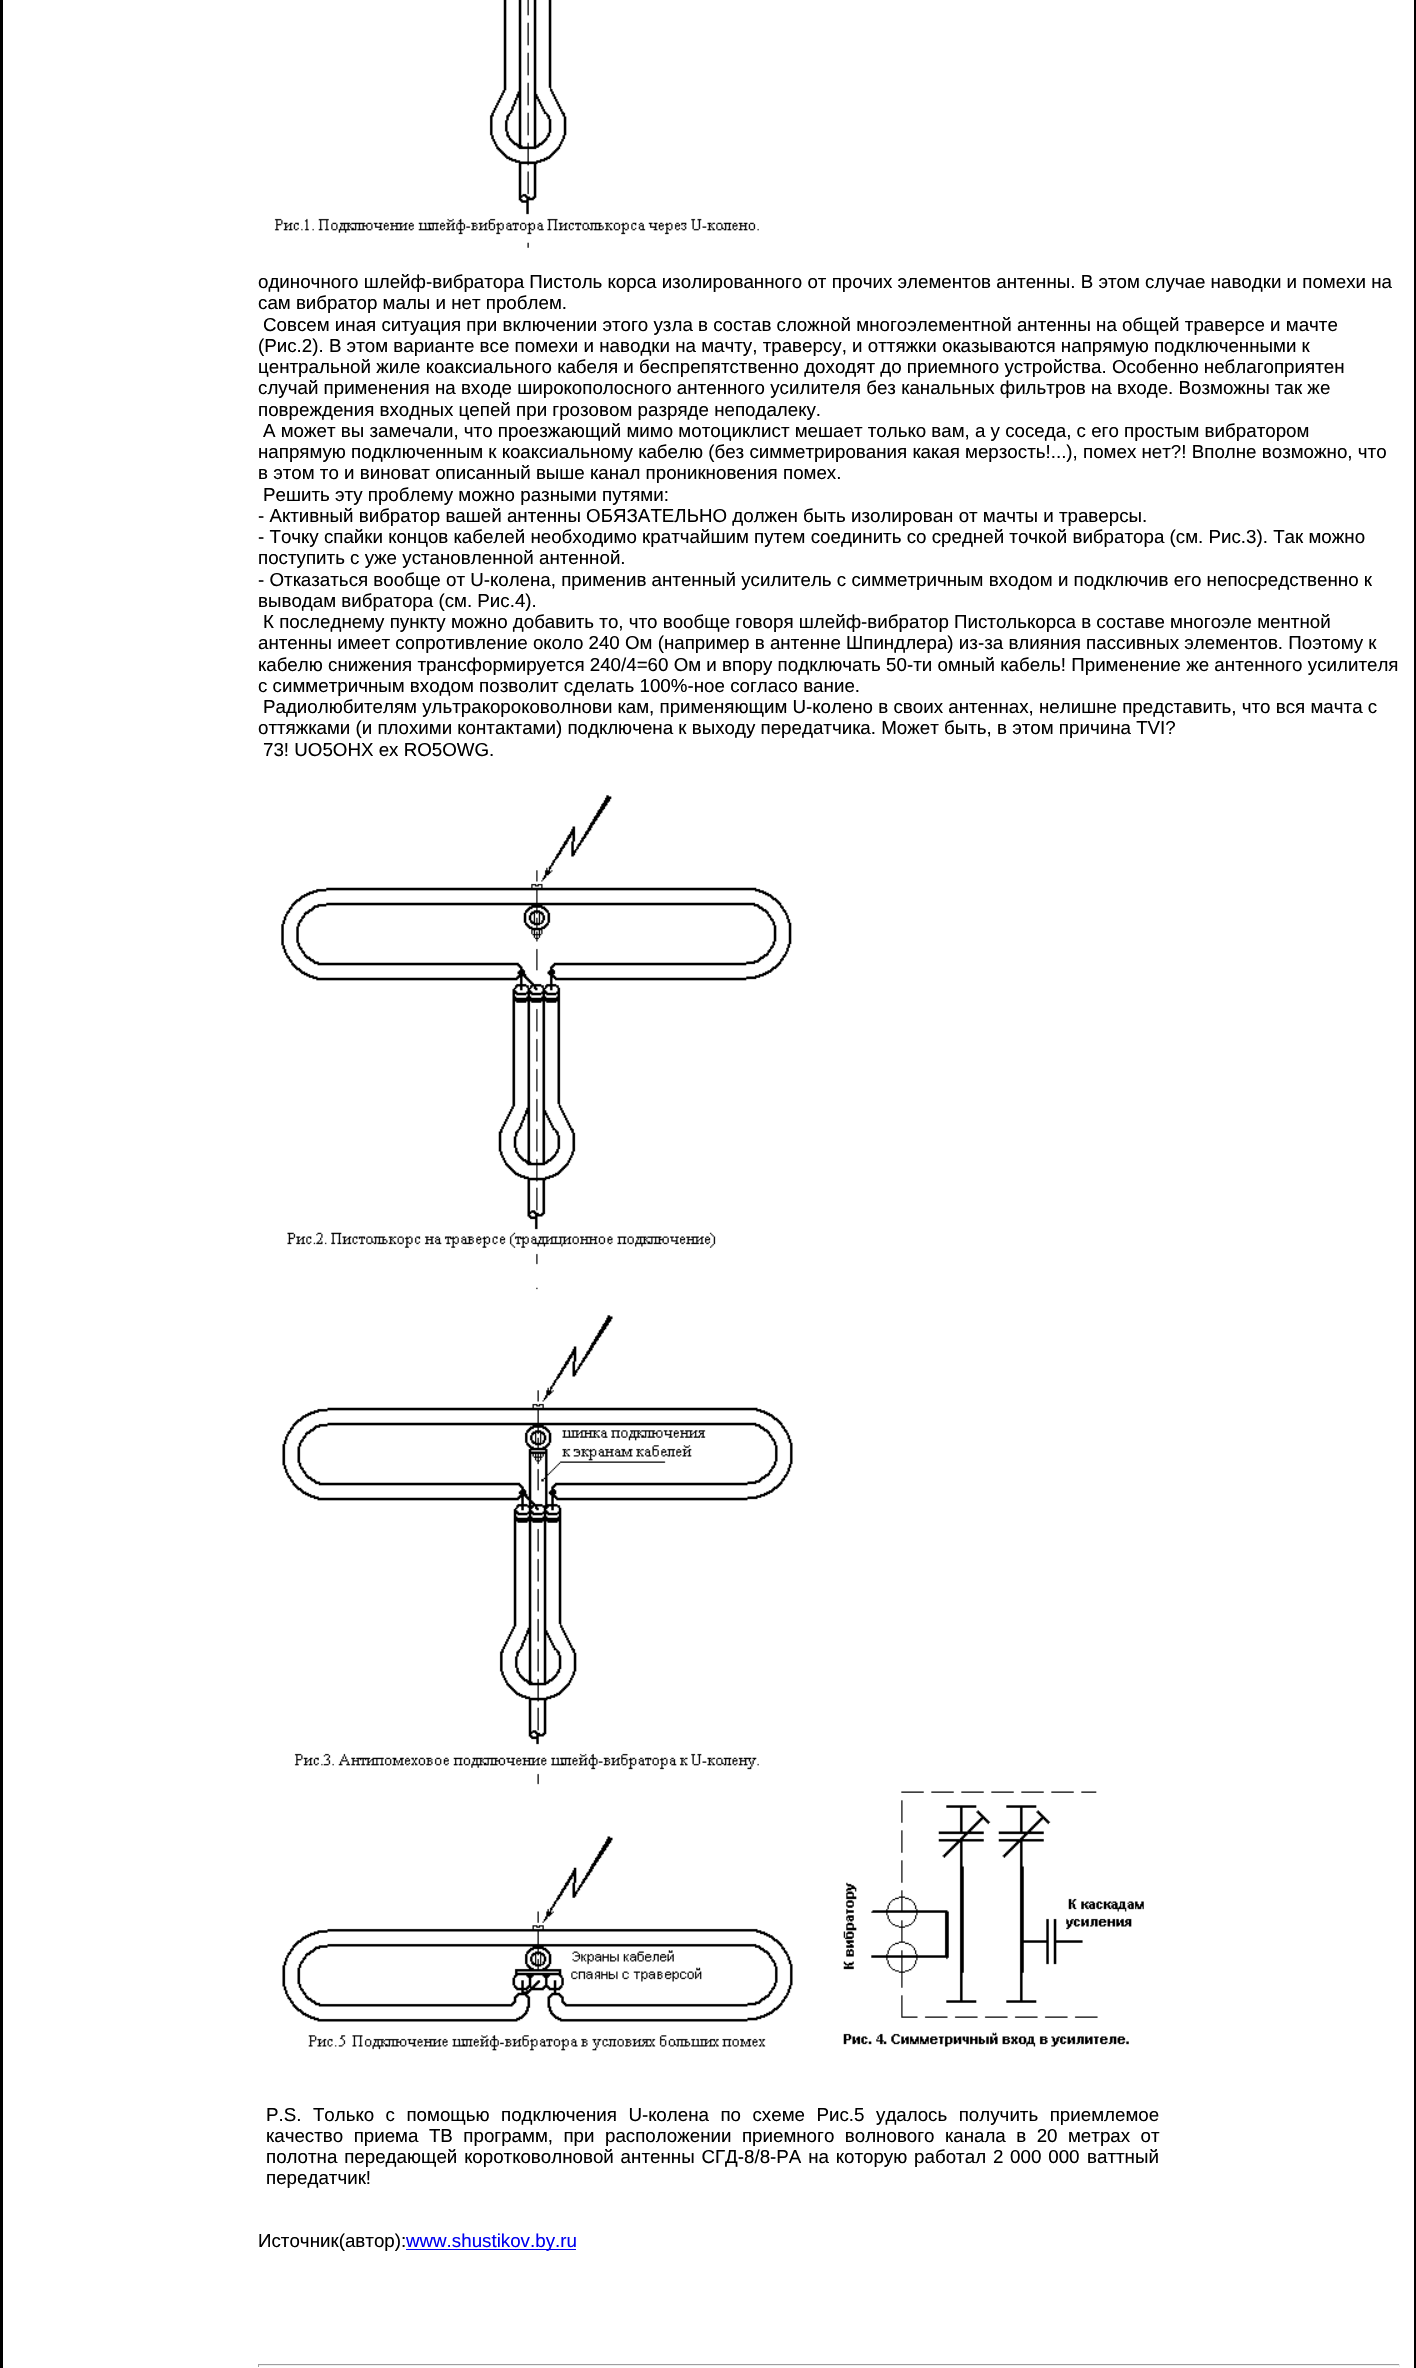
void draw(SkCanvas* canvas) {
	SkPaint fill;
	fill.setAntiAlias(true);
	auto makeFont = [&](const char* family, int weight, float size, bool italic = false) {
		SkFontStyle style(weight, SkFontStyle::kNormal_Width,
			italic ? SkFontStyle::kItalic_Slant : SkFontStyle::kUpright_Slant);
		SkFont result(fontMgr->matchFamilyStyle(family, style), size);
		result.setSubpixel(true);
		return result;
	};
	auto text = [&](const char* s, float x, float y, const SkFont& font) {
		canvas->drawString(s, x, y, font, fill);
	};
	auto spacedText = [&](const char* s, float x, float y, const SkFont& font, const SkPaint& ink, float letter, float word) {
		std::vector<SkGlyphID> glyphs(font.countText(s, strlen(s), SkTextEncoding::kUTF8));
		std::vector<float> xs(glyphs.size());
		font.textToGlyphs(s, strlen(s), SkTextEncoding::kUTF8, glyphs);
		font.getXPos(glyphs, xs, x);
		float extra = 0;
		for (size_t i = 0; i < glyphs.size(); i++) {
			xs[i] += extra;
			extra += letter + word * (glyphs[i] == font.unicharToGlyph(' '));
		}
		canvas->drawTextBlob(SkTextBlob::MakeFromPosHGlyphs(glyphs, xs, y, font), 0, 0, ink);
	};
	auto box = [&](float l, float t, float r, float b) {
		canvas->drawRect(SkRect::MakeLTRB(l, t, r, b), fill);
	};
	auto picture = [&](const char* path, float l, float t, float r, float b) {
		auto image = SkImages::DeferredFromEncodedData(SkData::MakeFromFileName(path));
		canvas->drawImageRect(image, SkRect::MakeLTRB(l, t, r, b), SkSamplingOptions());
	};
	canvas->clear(0xFF000000);
	fill.setColor(0xFFFFFFFF);
	box(3, 0, 1414, 2368);
	picture("image0.png", 274, 0, 759, 248);
	picture("image1.png", 281, 795, 792, 1265);
	picture("image2.png", 282, 1287, 793, 1785);
	picture("image3.png", 282, 1836, 793, 2051);
	picture("image4.png", 843, 1791, 1144, 2047);
	fill.setColor(0xFF0000EE);
	box(406, 2249, 576, 2250);
	fill.setColor(0xFF9F9F9F);
	box(258, 2364, 1400, 2365);
	fill.setColor(0xFFEEEEEE);
	box(1399, 2364, 1400, 2367);
	box(258, 2365, 1400, 2366);
	fill.setColor(0xFF9F9F9F);
	box(258, 2364, 259, 2367);
	auto font1 = makeFont("Liberation Sans", 400, 18.75f);
	fill.setColor(0xFF000000);
	text("одиночного шлейф-вибратора Пистоль корса изолированного от прочих элементов антенны. В этом случае наводки и помехи на", 258, 288, font1);
	text("сам вибратор малы и нет проблем.", 258, 309, font1);
	text("Совсем иная ситуация при включении этого узла в состав сложной многоэлементной антенны на общей траверсе и мачте", 263, 331, font1);
	text("(Рис.2). В этом варианте все помехи и наводки на мачту, траверсу, и оттяжки оказываются напрямую подключенными к", 258, 352, font1);
	text("центральной жиле коаксиального кабеля и беспрепятственно доходят до приемного устройства. Особенно неблагоприятен", 258, 373, font1);
	text("случай применения на входе широкополосного антенного усилителя без канальных фильтров на входе. Возможны так же", 258, 394, font1);
	text("повреждения входных цепей при грозовом разряде неподалеку.", 258, 416, font1);
	text("А может вы замечали, что проезжающий мимо мотоциклист мешает только вам, а у соседа, с его простым вибратором", 263, 437, font1);
	text("напрямую подключенным к коаксиальному кабелю (без симметрирования какая мерзость!...), помех нет?! Вполне возможно, что", 258, 458, font1);
	text("в этом то и виноват описанный выше канал проникновения помех.", 258, 479, font1);
	text("Решить эту проблему можно разными путями:", 263, 501, font1);
	text("- Активный вибратор вашей антенны ОБЯЗАТЕЛЬНО должен быть изолирован от мачты и траверсы.", 258, 522, font1);
	text("- Точку спайки концов кабелей необходимо кратчайшим путем соединить со средней точкой вибратора (см. Рис.3). Так можно", 258, 543, font1);
	text("поступить с уже установленной антенной.", 258, 564, font1);
	text("- Отказаться вообще от U-колена, применив антенный усилитель с симметричным входом и подключив его непосредственно к", 258, 586, font1);
	text("выводам вибратора (см. Рис.4).", 258, 607, font1);
	text("К последнему пункту можно добавить то, что вообще говоря шлейф-вибратор Пистолькорса в составе многоэле ментной", 263, 628, font1);
	text("антенны имеет сопротивление около 240 Ом (например в антенне Шпиндлера) из-за влияния пассивных элементов. Поэтому к", 258, 649, font1);
	text("кабелю снижения трансформируется 240/4=60 Ом и впору подключать 50-ти омный кабель! Применение же антенного усилителя", 258, 671, font1);
	text("с симметричным входом позволит сделать 100%-ное согласо вание.", 258, 692, font1);
	text("Радиолюбителям ультракороковолнови кам, применяющим U-колено в своих антеннах, нелишне представить, что вся мачта с", 263, 713, font1);
	text("оттяжками (и плохими контактами) подключена к выходу передатчика. Может быть, в этом причина TVI?", 258, 734, font1);
	text("73! UO5OHX ex RO5OWG.", 263, 756, font1);
	spacedText("P.S. Только с помощью подключения U-колена по схеме Рис.5", 266, 2121, font1, fill, 0, 6.25f);
	spacedText("удалось получить приемлемое", 876, 2121, font1, fill, 0, 6.25f);
	spacedText("качество приема ТВ программ, при расположении приемного волнового канала в 20 метрах от", 266, 2142, font1, fill, 0, 5.25f);
	spacedText("полотна передающей коротковолновой антенны СГД-8/8-РА на которую работал 2 000 000", 266, 2163, font1, fill, 0, 1.6f);
	text("ваттный", 1087, 2163, font1);
	text("передатчик!", 266, 2184, font1);
	text("Источник(автор):", 258, 2247, font1);
	fill.setColor(0xFF0000EE);
	text("www.shustikov.by.ru", 406, 2247, font1);
}
